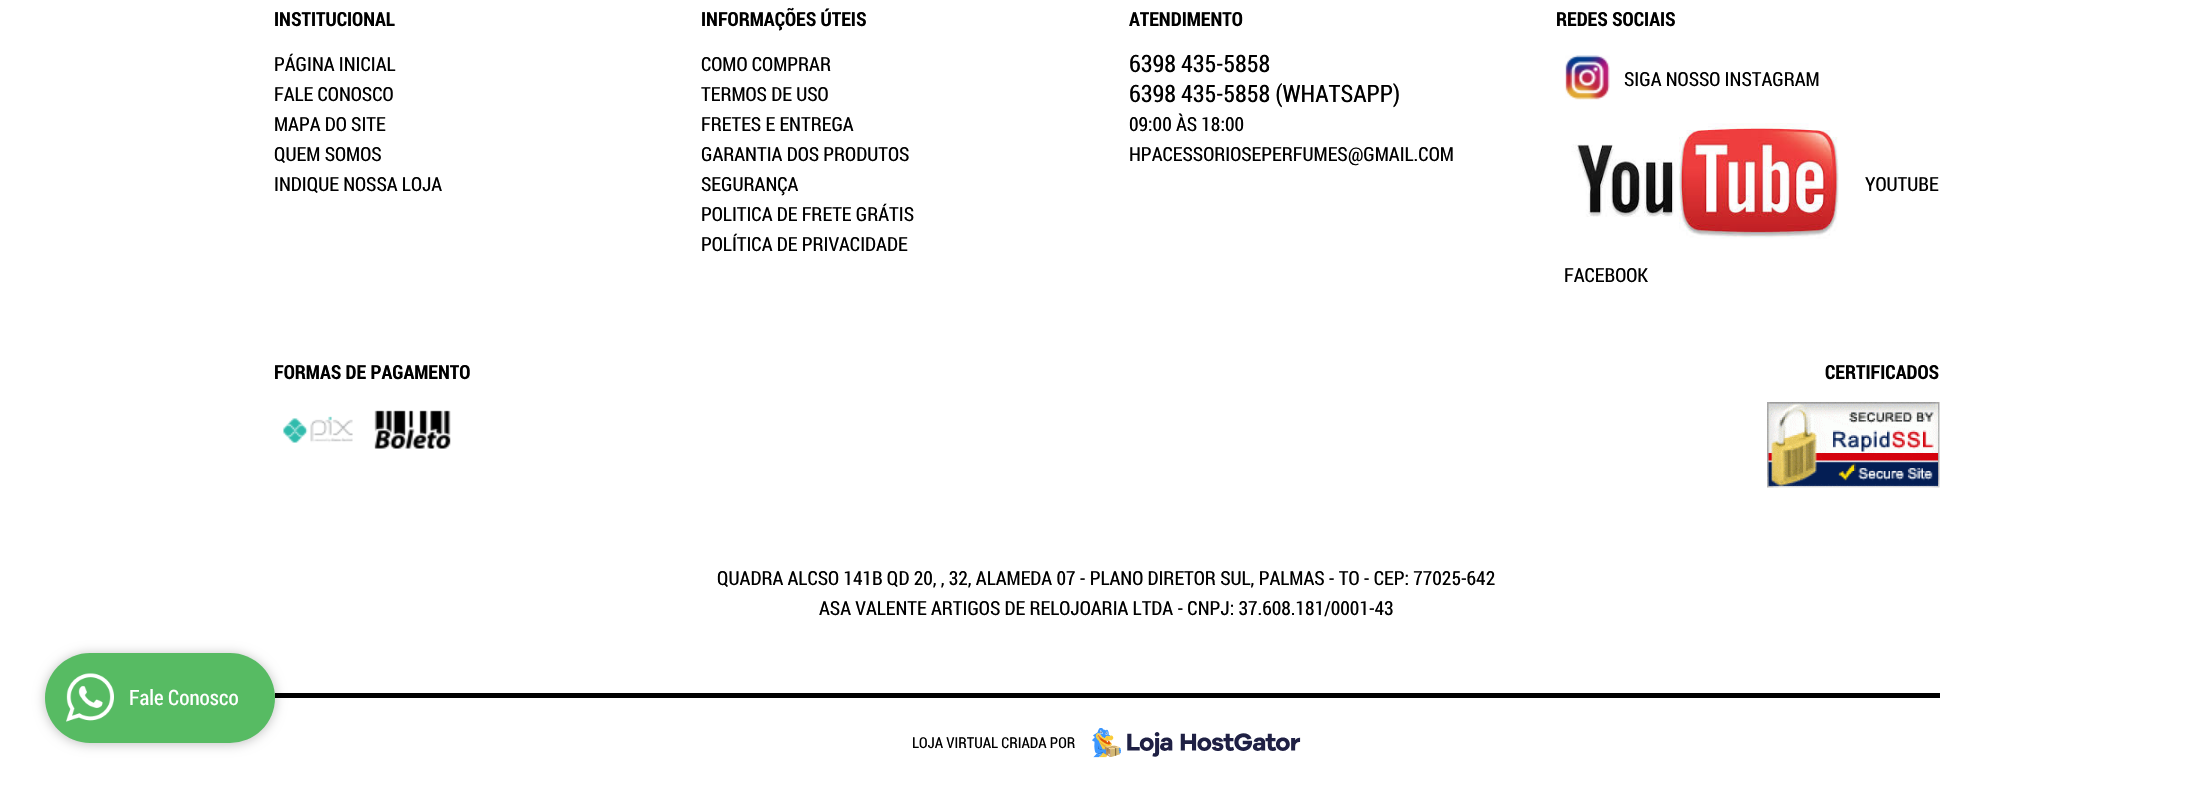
void draw(SkCanvas* canvas) {
	SkPaint fill;
	fill.setAntiAlias(true);
	auto makeFont = [&](const char* family, int weight, float size, bool italic = false) {
		SkFontStyle style(weight, SkFontStyle::kNormal_Width,
			italic ? SkFontStyle::kItalic_Slant : SkFontStyle::kUpright_Slant);
		SkFont result(fontMgr->matchFamilyStyle(family, style), size);
		result.setSubpixel(true);
		return result;
	};
	auto text = [&](const char* s, float x, float y, const SkFont& font) {
		canvas->drawString(s, x, y, font, fill);
	};
	auto box = [&](float l, float t, float r, float b) {
		canvas->drawRect(SkRect::MakeLTRB(l, t, r, b), fill);
	};
	auto roundBox = [&](float l, float t, float r, float b, float radius) {
		canvas->drawRoundRect(SkRect::MakeLTRB(l, t, r, b), radius, radius, fill);
	};
	auto picture = [&](const char* path, float l, float t, float r, float b) {
		auto image = SkImages::DeferredFromEncodedData(SkData::MakeFromFileName(path));
		canvas->drawImageRect(image, SkRect::MakeLTRB(l, t, r, b), SkSamplingOptions());
	};
	canvas->clear(0xFFFFFFFF);
	fill.setColor(0xFF000000);
	box(275, 693, 1940, 698);
	fill.setColor(0x40000000);
	fill.setMaskFilter(SkMaskFilter::MakeBlur(kNormal_SkBlurStyle, 6));
	canvas->drawRoundRect(SkRect::MakeLTRB(45, 654, 275, 744), 45, 45, fill);
	fill.setMaskFilter(nullptr);
	fill.setColor(0xFF57BB63);
	roundBox(45, 653, 275, 743, 45);
	picture("image0.png", 66, 673, 114, 722);
	picture("image1.png", 1565, 55, 1610, 100);
	picture("image2.png", 1571, 123, 1839, 239);
	picture("image3.png", 283, 416, 353, 443);
	picture("image4.png", 374, 410, 451, 449);
	picture("image5.png", 1767, 402, 1940, 488);
	picture("image6.png", 1092, 728, 1301, 758);
	auto font1 = makeFont("Roboto Condensed", 400, 21);
	fill.setColor(0xFFFFFFFF);
	text("Fale Conosco", 129, 705, font1);
	auto font2 = makeFont("Roboto Condensed", 700, 19.5f);
	fill.setColor(0xFF000000);
	text("INSTITUCIONAL", 274, 26, font2);
	auto font3 = makeFont("Roboto Condensed", 400, 19.5f);
	text("PÁGINA INICIAL", 274, 71, font3);
	text("FALE CONOSCO", 274, 101, font3);
	text("MAPA DO SITE", 274, 131, font3);
	text("QUEM SOMOS", 274, 161, font3);
	text("INDIQUE NOSSA LOJA", 274, 191, font3);
	text("INFORMAÇÕES ÚTEIS", 701, 26, font2);
	text("COMO COMPRAR", 701, 71, font3);
	text("TERMOS DE USO", 701, 101, font3);
	text("FRETES E ENTREGA", 701, 131, font3);
	text("GARANTIA DOS PRODUTOS", 701, 161, font3);
	text("SEGURANÇA", 701, 191, font3);
	text("POLITICA DE FRETE GRÁTIS", 701, 221, font3);
	text("POLÍTICA DE PRIVACIDADE", 701, 251, font3);
	text("ATENDIMENTO", 1129, 26, font2);
	auto font4 = makeFont("Roboto Condensed", 400, 24);
	text("6398 435-5858", 1129, 72, font4);
	text("6398 435-5858 (WHATSAPP)", 1129, 102, font4);
	text("09:00 ÀS 18:00", 1129, 131, font3);
	text("HPACESSORIOSEPERFUMES@GMAIL.COM", 1129, 161, font3);
	text("REDES SOCIAIS", 1556, 26, font2);
	text("SIGA NOSSO INSTAGRAM", 1624, 86, font3);
	text("YOUTUBE", 1865, 191, font3);
	text("FACEBOOK", 1564, 282, font3);
	text("FORMAS DE PAGAMENTO", 274, 379, font2);
	text("CERTIFICADOS", 1825, 379, font2);
	text("QUADRA ALCSO 141B QD 20, , 32, ALAMEDA 07 - PLANO DIRETOR SUL, PALMAS - TO - CEP: 77025-642", 717, 585, font3);
	text("ASA VALENTE ARTIGOS DE RELOJOARIA LTDA - CNPJ: 37.608.181/0001-43", 819, 615, font3);
	auto font5 = makeFont("Roboto Condensed", 400, 15);
	text("LOJA VIRTUAL CRIADA POR", 912, 748, font5);
}
